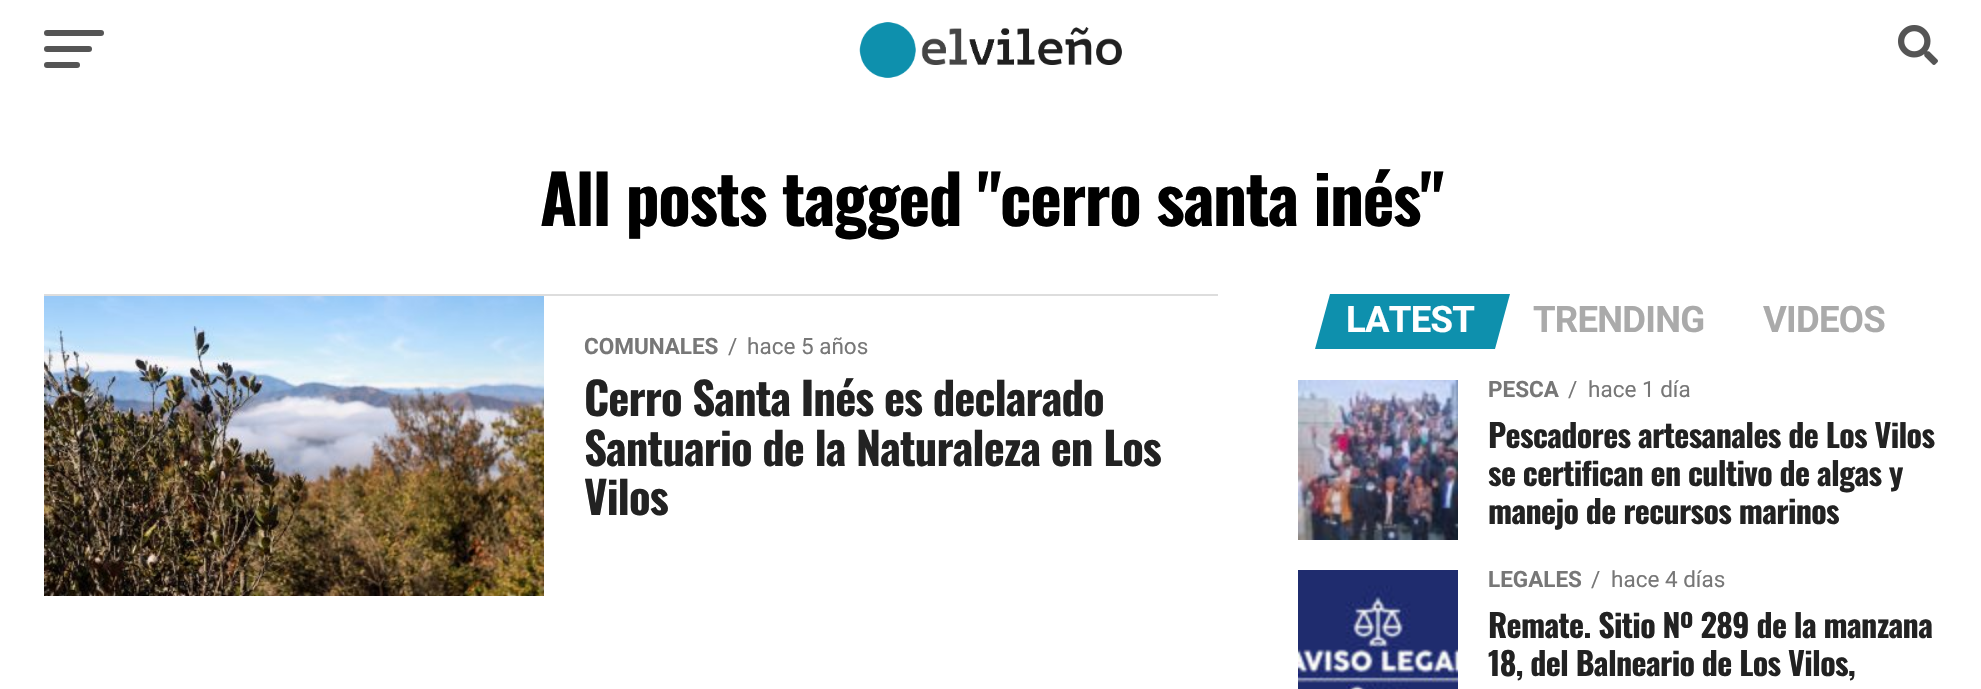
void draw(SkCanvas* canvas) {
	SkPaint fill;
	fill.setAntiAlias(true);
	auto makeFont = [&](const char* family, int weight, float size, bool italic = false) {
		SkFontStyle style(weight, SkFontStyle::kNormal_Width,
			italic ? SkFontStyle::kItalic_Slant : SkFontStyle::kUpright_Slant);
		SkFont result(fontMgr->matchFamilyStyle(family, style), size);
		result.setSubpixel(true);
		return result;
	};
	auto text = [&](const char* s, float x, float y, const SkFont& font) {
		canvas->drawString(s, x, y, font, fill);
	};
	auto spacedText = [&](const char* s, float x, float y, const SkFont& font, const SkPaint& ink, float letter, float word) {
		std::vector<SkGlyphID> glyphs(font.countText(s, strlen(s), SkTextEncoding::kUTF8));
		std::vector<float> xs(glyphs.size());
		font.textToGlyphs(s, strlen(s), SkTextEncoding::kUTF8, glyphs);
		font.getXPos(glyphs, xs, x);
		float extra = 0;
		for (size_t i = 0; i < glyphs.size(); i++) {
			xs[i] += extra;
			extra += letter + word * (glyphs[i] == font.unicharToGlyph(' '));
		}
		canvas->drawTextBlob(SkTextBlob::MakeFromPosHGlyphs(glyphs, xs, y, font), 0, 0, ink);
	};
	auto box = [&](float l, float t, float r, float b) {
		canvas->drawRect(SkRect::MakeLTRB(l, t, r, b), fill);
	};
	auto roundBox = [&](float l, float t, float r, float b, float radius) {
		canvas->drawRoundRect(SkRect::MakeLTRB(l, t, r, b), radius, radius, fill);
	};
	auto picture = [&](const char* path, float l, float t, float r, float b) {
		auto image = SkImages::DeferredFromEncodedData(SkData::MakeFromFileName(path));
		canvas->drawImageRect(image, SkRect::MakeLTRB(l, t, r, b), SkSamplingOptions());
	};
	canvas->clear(0xFFFFFFFF);
	fill.setColor(0xFF555555);
	roundBox(44, 30, 104, 36, 3);
	roundBox(44, 46, 92, 52, 3);
	roundBox(44, 62, 80, 68, 3);
	picture("image0.png", 859, 22, 1122, 78);
	picture("image1.png", 1898, 25, 1938, 65);
	fill.setColor(0xFFDDDDDD);
	box(44, 294, 1218, 296);
	picture("image2.png", 44, 296, 544, 596);
	fill.setColor(0xFF0E90AD);
	canvas->drawPath(SkPathBuilder().moveTo(1330, 294).lineTo(1510, 294).lineTo(1495, 349).lineTo(1315, 349).close().detach(), fill);
	picture("image3.png", 1298, 380, 1458, 540);
	picture("image4.png", 1298, 570, 1458, 689);
	auto font1 = makeFont("Oswald", 700, 67.25f);
	fill.setColor(0xFF000000);
	spacedText("All posts tagged \"cerro santa inés\"", 540, 226, font1, fill, -1.35f, 0);
	auto font2 = makeFont("Roboto", 700, 22.5f);
	fill.setColor(0xFF777777);
	text("COMUNALES", 584, 354, font2);
	auto font3 = makeFont("Roboto", 400, 22.5f);
	text("/", 728, 354, font3);
	text("hace 5 años", 747, 354, font3);
	auto font4 = makeFont("Oswald", 700, 44.75f);
	fill.setColor(0xFF222222);
	spacedText("Cerro Santa Inés es declarado", 584, 416, font4, fill, -0.9f, 0);
	spacedText("Santuario de la Naturaleza en Los", 584, 466, font4, fill, -0.9f, 0);
	spacedText("Vilos", 584, 515, font4, fill, -0.9f, 0);
	auto font5 = makeFont("Roboto", 700, 36.5f);
	fill.setColor(0xFFFFFFFF);
	spacedText("LATEST", 1346, 332, font5, fill, -0.75f, 0);
	fill.setColor(0xFFAAAAAA);
	spacedText("TRENDING", 1533, 332, font5, fill, -0.75f, 0);
	spacedText("VIDEOS", 1763, 332, font5, fill, -0.75f, 0);
	fill.setColor(0xFF777777);
	text("PESCA", 1488, 397, font2);
	text("/", 1568, 397, font3);
	text("hace 1 día", 1588, 397, font3);
	auto font6 = makeFont("Oswald", 700, 32);
	fill.setColor(0xFF222222);
	spacedText("Pescadores artesanales de Los Vilos", 1488, 448, font6, fill, -0.65f, 0);
	spacedText("se certifican en cultivo de algas y", 1488, 486, font6, fill, -0.65f, 0);
	spacedText("manejo de recursos marinos", 1488, 524, font6, fill, -0.65f, 0);
	fill.setColor(0xFF777777);
	text("LEGALES", 1488, 587, font2);
	text("/", 1591, 587, font3);
	text("hace 4 días", 1611, 587, font3);
	fill.setColor(0xFF222222);
	spacedText("Remate. Sitio Nº 289 de la manzana", 1488, 638, font6, fill, -0.65f, 0);
	spacedText("18, del Balneario de Los Vilos,", 1488, 676, font6, fill, -0.65f, 0);
}
